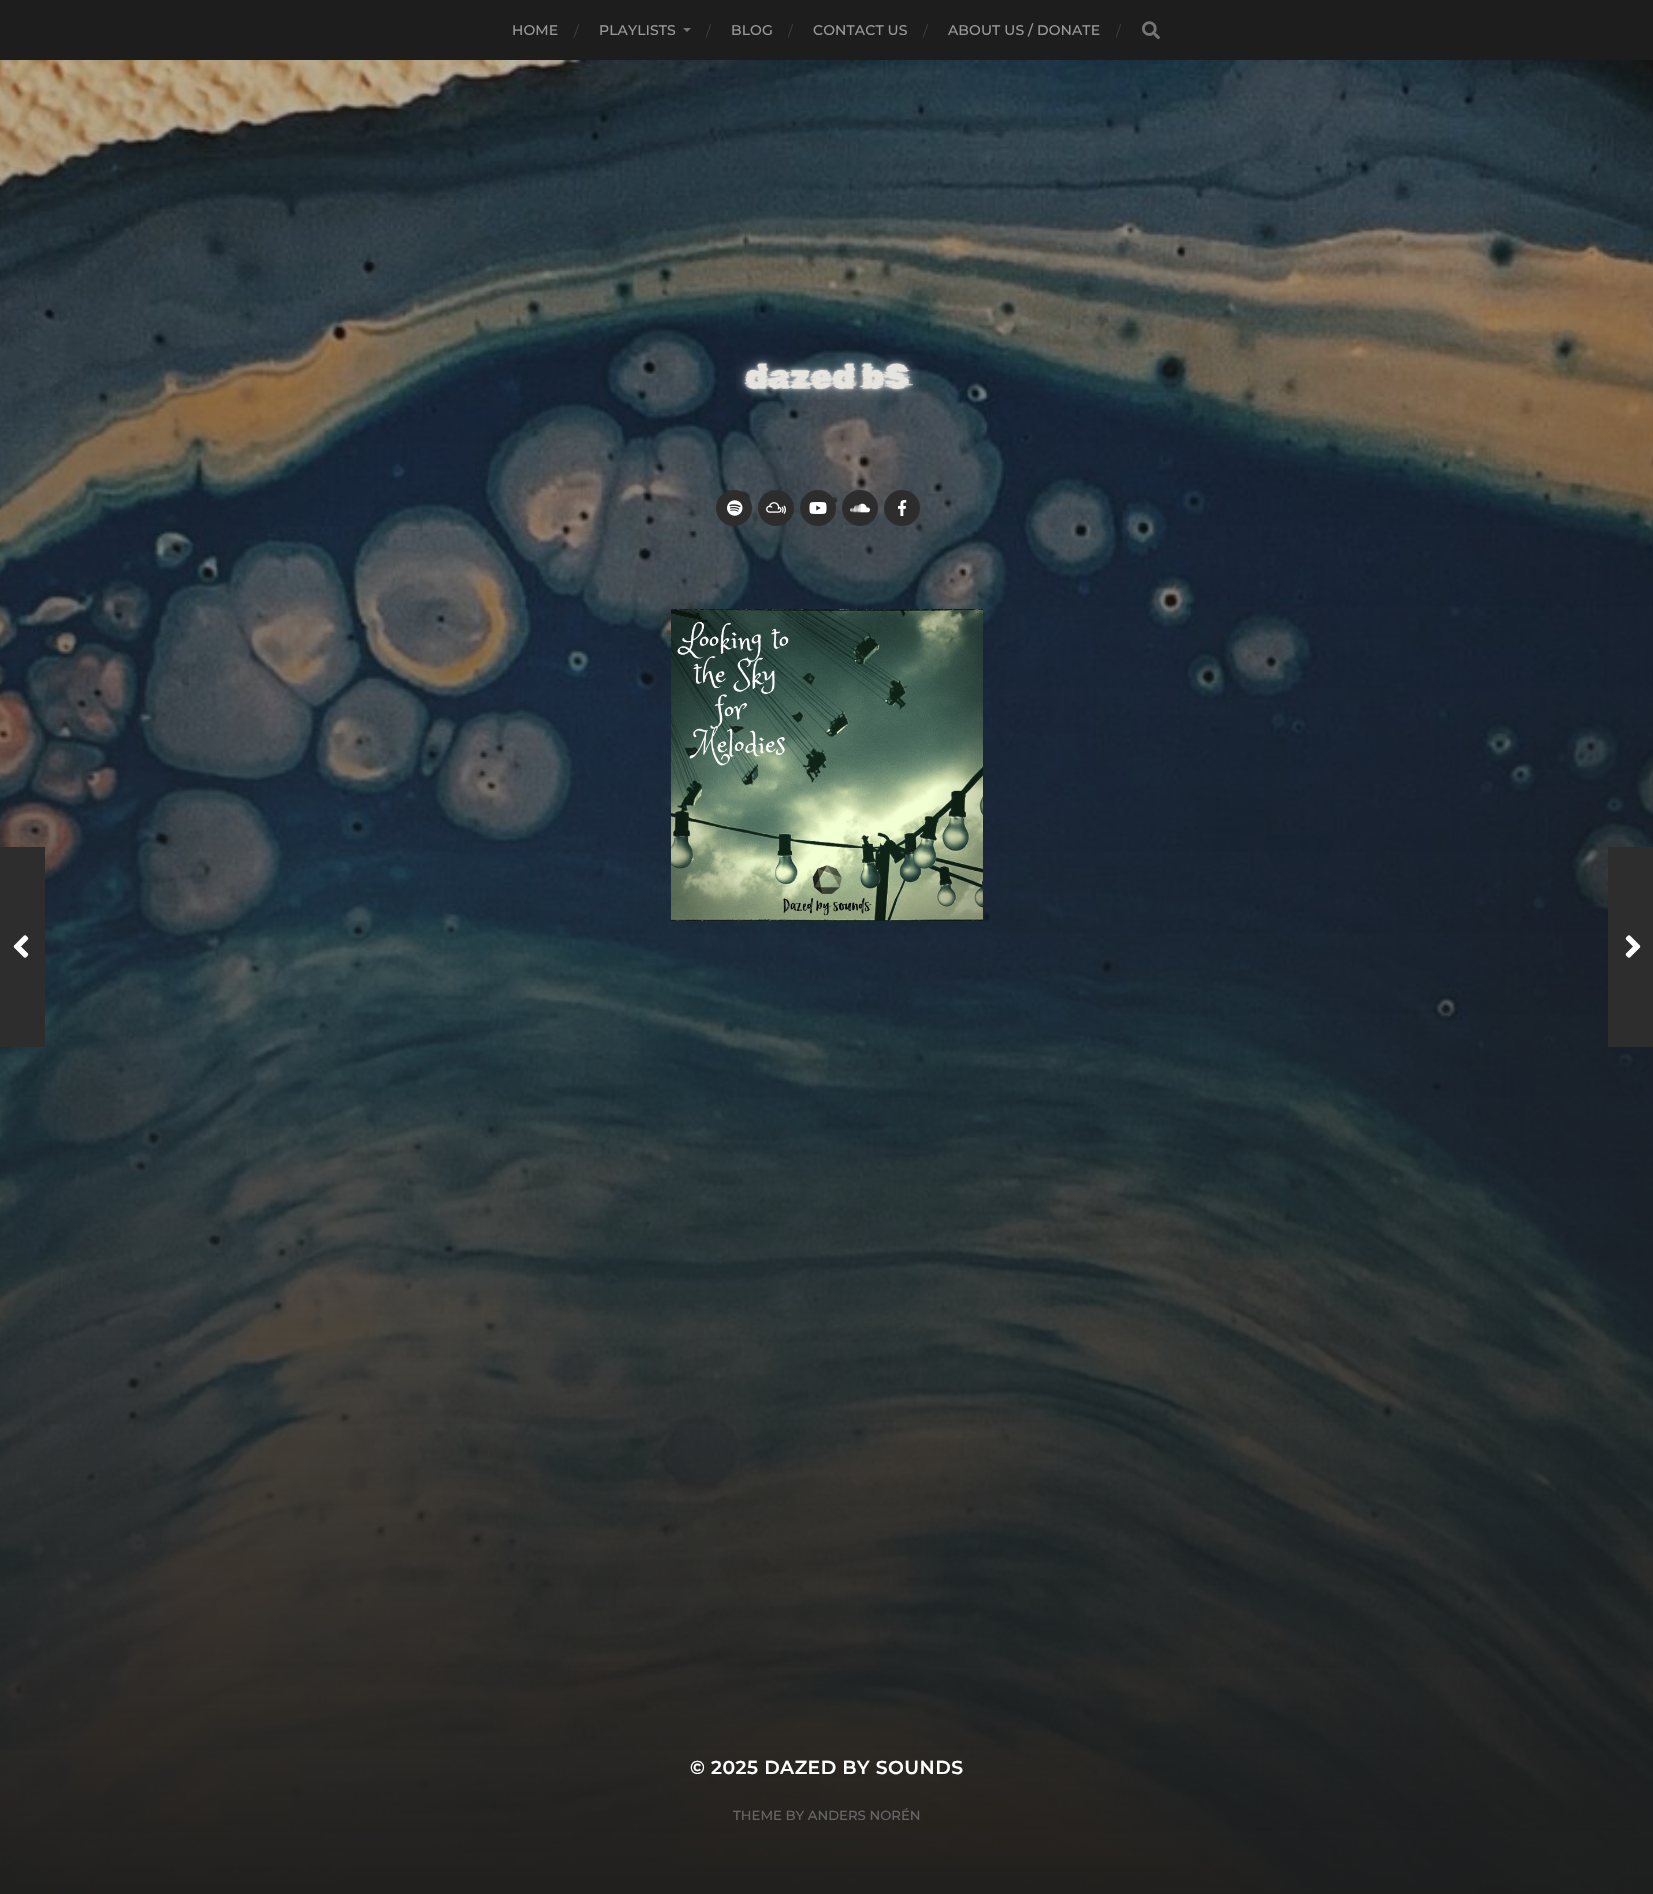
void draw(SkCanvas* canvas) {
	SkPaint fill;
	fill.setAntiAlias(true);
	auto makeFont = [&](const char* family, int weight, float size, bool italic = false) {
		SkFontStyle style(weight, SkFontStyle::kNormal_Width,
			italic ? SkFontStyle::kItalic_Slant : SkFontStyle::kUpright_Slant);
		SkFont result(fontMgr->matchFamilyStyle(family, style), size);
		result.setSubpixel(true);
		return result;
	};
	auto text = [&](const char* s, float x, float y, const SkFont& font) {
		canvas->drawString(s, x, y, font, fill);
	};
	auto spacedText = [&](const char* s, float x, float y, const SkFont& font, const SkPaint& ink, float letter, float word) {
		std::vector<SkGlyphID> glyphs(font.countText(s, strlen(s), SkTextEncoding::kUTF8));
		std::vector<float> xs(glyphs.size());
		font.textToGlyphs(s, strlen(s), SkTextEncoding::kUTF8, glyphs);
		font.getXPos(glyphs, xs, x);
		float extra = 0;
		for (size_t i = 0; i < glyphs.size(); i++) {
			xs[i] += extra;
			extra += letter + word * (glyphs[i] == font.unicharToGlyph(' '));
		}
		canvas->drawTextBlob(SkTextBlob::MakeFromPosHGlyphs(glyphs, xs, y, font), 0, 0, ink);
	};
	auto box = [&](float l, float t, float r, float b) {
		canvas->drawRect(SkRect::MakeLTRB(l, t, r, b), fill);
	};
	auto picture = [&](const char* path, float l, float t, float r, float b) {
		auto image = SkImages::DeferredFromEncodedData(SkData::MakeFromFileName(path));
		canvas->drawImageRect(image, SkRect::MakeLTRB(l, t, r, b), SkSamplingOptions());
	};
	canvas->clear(0xFF1D1D1D);
	fill.setColor(0xFF757575);
	canvas->drawPath(SkPathBuilder().moveTo(683, 28).lineTo(691, 28).lineTo(687, 32).close().detach(), fill);
	picture("image0.png", 1142, 21, 1160, 40);
	picture("image1.png", 0, 60, 1653, 1894);
	picture("image2.png", 736, 354, 919, 400);
	fill.setColor(0xFF2D2D2D);
	canvas->drawCircle(734, 508, 18, fill);
	picture("image3.png", 727, 500, 743, 516);
	canvas->drawCircle(776, 508, 18, fill);
	picture("image4.png", 766, 502, 786, 514);
	canvas->drawCircle(818, 508, 18, fill);
	picture("image5.png", 809, 502, 827, 514);
	canvas->drawCircle(860, 508, 18, fill);
	picture("image6.png", 850, 503, 870, 513);
	canvas->drawCircle(902, 508, 18, fill);
	picture("image7.png", 898, 500, 907, 516);
	picture("image8.png", 671, 609, 983, 921);
	box(0, 847, 45, 1047);
	picture("image9.png", 13, 935, 29, 958);
	box(1608, 847, 1653, 1047);
	picture("image10.png", 1625, 935, 1641, 958);
	auto font1 = makeFont("Montserrat", 100, 14);
	fill.setColor(0xFF999999);
	spacedText("HOME", 512, 35, font1, fill, 0.1f, 0);
	auto font2 = makeFont("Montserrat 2", 100, 14);
	fill.setColor(0xFF3D3D3D);
	text("/", 574, 36, font2);
	fill.setColor(0xFF999999);
	spacedText("PLAYLISTS", 599, 35, font1, fill, 0.1f, 0);
	fill.setColor(0xFF3D3D3D);
	text("/", 706, 36, font2);
	fill.setColor(0xFF999999);
	spacedText("BLOG", 731, 35, font1, fill, 0.1f, 0);
	fill.setColor(0xFF3D3D3D);
	text("/", 788, 36, font2);
	fill.setColor(0xFF999999);
	spacedText("CONTACT US", 813, 35, font1, fill, 0.1f, 0);
	fill.setColor(0xFF3D3D3D);
	text("/", 923, 36, font2);
	fill.setColor(0xFF999999);
	spacedText("ABOUT US / DONATE", 948, 35, font1, fill, 0.1f, 0);
	fill.setColor(0xFF3D3D3D);
	text("/", 1116, 36, font2);
	auto font3 = makeFont("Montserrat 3", 100, 18.75f);
	fill.setColor(0xFFFFFFFF);
	spacedText("© 2025 DAZED BY SOUNDS", 690, 1774, font3, fill, 0.5f, 0);
	auto font4 = makeFont("Montserrat", 100, 13.25f);
	fill.setColor(0xFF666666);
	text("THEME BY ANDERS NORÉN", 733, 1820, font4);
}
